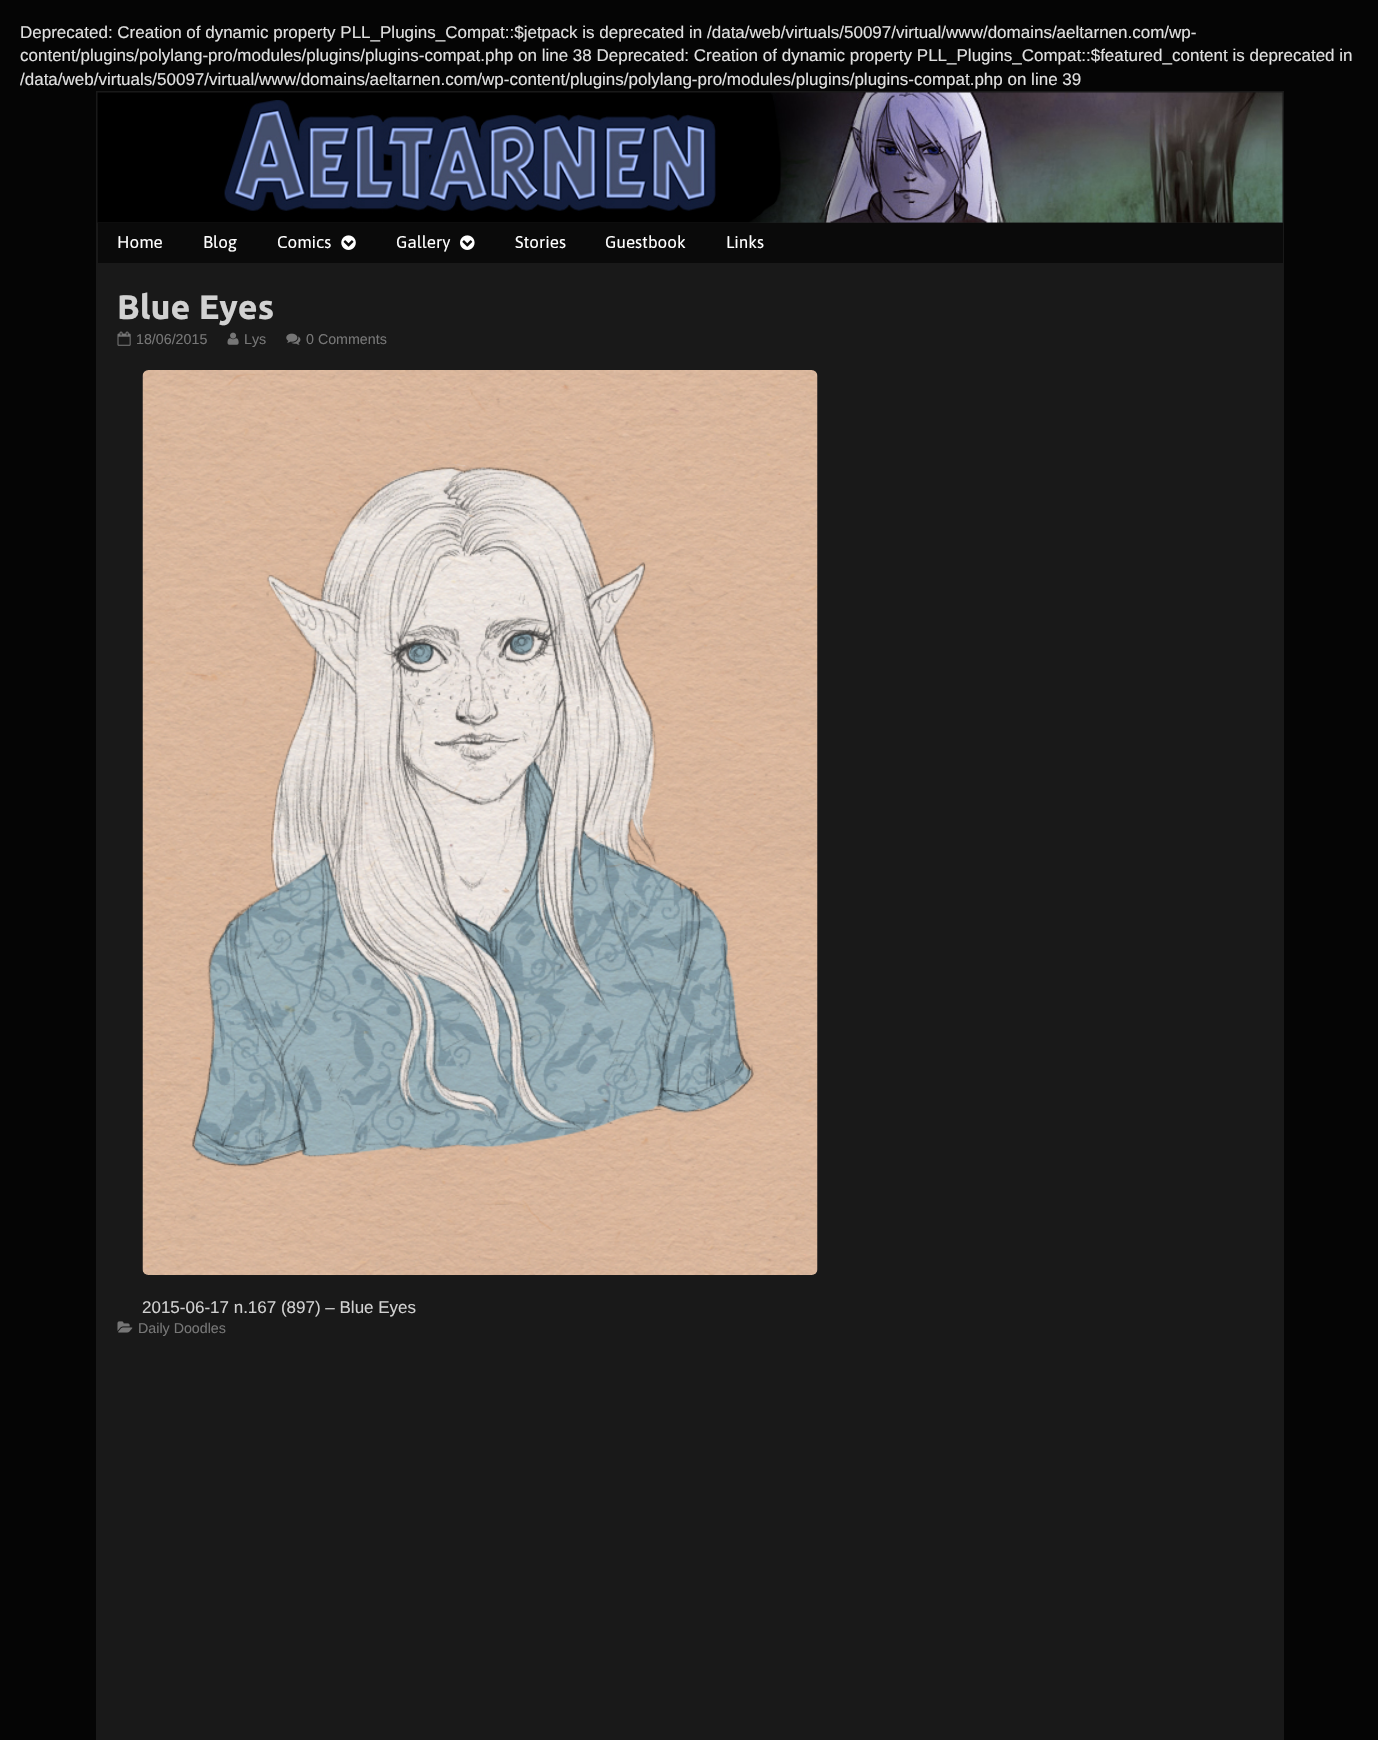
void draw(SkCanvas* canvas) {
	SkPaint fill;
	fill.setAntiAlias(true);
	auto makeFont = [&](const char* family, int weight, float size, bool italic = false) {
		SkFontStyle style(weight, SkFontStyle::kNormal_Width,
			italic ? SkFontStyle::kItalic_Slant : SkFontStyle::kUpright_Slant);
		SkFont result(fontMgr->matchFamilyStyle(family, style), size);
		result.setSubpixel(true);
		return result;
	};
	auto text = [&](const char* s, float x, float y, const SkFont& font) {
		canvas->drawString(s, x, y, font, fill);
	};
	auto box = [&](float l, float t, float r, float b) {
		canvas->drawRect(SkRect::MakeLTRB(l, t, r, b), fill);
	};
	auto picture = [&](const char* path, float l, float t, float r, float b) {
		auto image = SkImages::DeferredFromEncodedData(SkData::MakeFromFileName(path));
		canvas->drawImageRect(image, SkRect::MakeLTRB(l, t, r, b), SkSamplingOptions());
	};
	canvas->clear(0xFF050505);
	fill.setColor(0x33000000);
	fill.setMaskFilter(SkMaskFilter::MakeBlur(kNormal_SkBlurStyle, 10));
	canvas->drawRect(SkRect::MakeLTRB(96, 91, 1284, 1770), fill);
	fill.setMaskFilter(nullptr);
	fill.setColor(0xFF191919);
	box(96, 91, 1284, 1740);
	picture("image0.png", 97, 92, 1283, 223);
	fill.setColor(0xFF0A0A0A);
	box(98, 223, 1283, 263);
	picture("image1.png", 341, 235, 356, 250);
	picture("image2.png", 460, 235, 475, 250);
	picture("image3.png", 117, 331, 131, 346);
	picture("image4.png", 227, 332, 239, 345);
	picture("image5.png", 286, 333, 301, 345);
	picture("image6.png", 142, 370, 818, 1275);
	picture("image7.png", 117, 1321, 133, 1333);
	auto font1 = makeFont("Liberation Sans", 400, 17);
	fill.setColor(0xFFE0E0E0);
	text("Deprecated: Creation of dynamic property PLL_Plugins_Compat::$jetpack is deprecated in /data/web/virtuals/50097/virtual/www/domains/aeltarnen.com/wp-", 20, 38, font1);
	text("content/plugins/polylang-pro/modules/plugins/plugins-compat.php on line 38 Deprecated: Creation of dynamic property PLL_Plugins_Compat::$featured_content is deprecated in", 20, 61, font1);
	text("/data/web/virtuals/50097/virtual/www/domains/aeltarnen.com/wp-content/plugins/polylang-pro/modules/plugins/plugins-compat.php on line 39", 20, 85, font1);
	auto font2 = makeFont("Asap", 400, 17);
	fill.setColor(0xFFFFFFFF);
	text("Home", 117, 248, font2);
	text("Blog", 203, 248, font2);
	text("Comics", 277, 248, font2);
	text("Gallery", 396, 248, font2);
	text("Stories", 515, 248, font2);
	text("Guestbook", 605, 248, font2);
	text("Links", 726, 248, font2);
	auto font3 = makeFont("Ubuntu", 700, 34);
	fill.setColor(0xFFD1D1D1);
	text("Blue Eyes", 117, 319, font3);
	auto font4 = makeFont("Liberation Sans", 400, 14.25f);
	fill.setColor(0xFF767676);
	text("18/06/2015", 136, 344, font4);
	text("Lys", 244, 344, font4);
	text("0 Comments", 306, 344, font4);
	fill.setColor(0xFFD1D1D1);
	text("2015-06-17 n.167 (897) – Blue Eyes", 142, 1313, font1);
	fill.setColor(0xFF767676);
	text("Daily Doodles", 138, 1333, font4);
}
